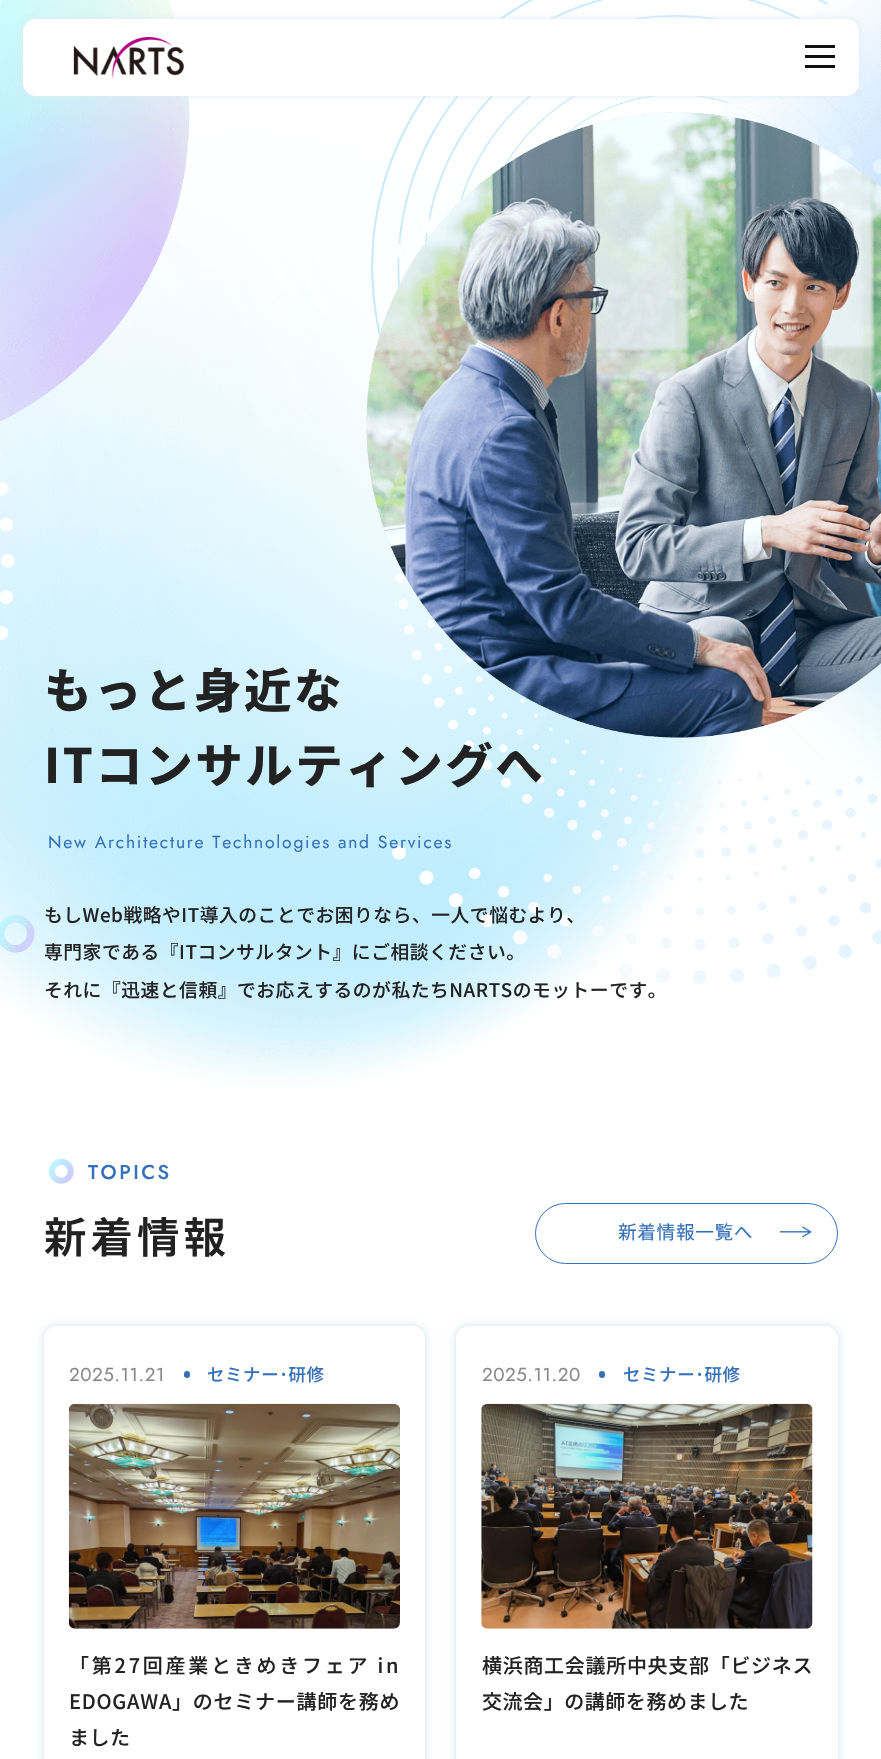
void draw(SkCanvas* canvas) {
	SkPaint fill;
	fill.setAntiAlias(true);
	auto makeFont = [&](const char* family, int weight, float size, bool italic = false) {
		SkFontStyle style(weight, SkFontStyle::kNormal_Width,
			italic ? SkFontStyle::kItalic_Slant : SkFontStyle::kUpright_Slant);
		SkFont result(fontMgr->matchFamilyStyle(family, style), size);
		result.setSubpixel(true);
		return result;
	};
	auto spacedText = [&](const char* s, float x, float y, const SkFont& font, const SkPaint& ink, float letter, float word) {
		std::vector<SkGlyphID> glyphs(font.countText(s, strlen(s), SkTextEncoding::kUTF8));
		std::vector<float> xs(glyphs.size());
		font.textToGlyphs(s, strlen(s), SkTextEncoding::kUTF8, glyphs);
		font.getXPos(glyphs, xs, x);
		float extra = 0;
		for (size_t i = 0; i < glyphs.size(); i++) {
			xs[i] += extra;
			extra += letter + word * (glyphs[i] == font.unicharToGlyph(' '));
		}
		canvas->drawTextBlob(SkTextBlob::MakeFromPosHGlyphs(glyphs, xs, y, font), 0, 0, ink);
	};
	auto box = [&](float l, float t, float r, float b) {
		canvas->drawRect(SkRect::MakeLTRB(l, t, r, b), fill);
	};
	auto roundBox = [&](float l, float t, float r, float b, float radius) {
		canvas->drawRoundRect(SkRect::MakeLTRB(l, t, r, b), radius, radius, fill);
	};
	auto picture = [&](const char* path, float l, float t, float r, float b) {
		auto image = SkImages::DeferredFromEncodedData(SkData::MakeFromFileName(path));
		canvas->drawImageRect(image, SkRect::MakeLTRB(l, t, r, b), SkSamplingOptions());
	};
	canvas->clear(0xFFFFFFFF);
	picture("image1.png", 0, 0, 745, 1088);
	picture("image2.png", 371, 0, 881, 984);
	fill.setColor(0xFFDEECF3);
	fill.setMaskFilter(SkMaskFilter::MakeBlur(kNormal_SkBlurStyle, 3));
	canvas->drawRoundRect(SkRect::MakeLTRB(23, 19, 859, 96), 13, 13, fill);
	fill.setMaskFilter(nullptr);
	fill.setColor(0xFFFFFFFF);
	roundBox(23, 19, 859, 96, 13);
	fill.setColor(0xFF111111);
	box(805, 45, 835, 48);
	box(805, 55, 835, 58);
	box(805, 65, 835, 68);
	picture("image0.png", 73, 37, 184, 79);
	picture("image3.png", 366, 112, 881, 738);
	picture("image4.png", 48, 1158, 74, 1184);
	fill.setStyle(SkPaint::kStroke_Style);
	fill.setStrokeWidth(1);
	fill.setColor(0xFF3571B9);
	canvas->drawRoundRect(SkRect::MakeLTRB(535.5f, 1203.5f, 837.5f, 1263.5f), 30, 30, fill);
	picture("image5.png", 780, 1226, 812, 1238);
	fill.setStyle(SkPaint::kFill_Style);
	fill.setColor(0xFFDEECF3);
	fill.setMaskFilter(SkMaskFilter::MakeBlur(kNormal_SkBlurStyle, 5));
	canvas->drawRoundRect(SkRect::MakeLTRB(44, 1326, 425, 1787), 13, 13, fill);
	fill.setMaskFilter(nullptr);
	fill.setMaskFilter(SkMaskFilter::MakeBlur(kNormal_SkBlurStyle, 2));
	canvas->drawRoundRect(SkRect::MakeLTRB(44, 1326, 425, 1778), 13, 13, fill);
	fill.setMaskFilter(nullptr);
	fill.setColor(0xFFFFFFFF);
	roundBox(44, 1326, 425, 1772, 13);
	fill.setColor(0xFF3571B9);
	roundBox(184, 1371, 190, 1378, 3);
	picture("image6.png", 68, 1403, 400, 1629);
	fill.setColor(0xFFDEECF3);
	fill.setMaskFilter(SkMaskFilter::MakeBlur(kNormal_SkBlurStyle, 5));
	canvas->drawRoundRect(SkRect::MakeLTRB(456, 1326, 838, 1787), 13, 13, fill);
	fill.setMaskFilter(nullptr);
	fill.setMaskFilter(SkMaskFilter::MakeBlur(kNormal_SkBlurStyle, 2));
	canvas->drawRoundRect(SkRect::MakeLTRB(456, 1326, 838, 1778), 13, 13, fill);
	fill.setMaskFilter(nullptr);
	fill.setColor(0xFFFFFFFF);
	roundBox(456, 1326, 838, 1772, 13);
	fill.setColor(0xFF3571B9);
	roundBox(599, 1371, 605, 1378, 3);
	picture("image7.png", 481, 1403, 813, 1629);
	auto font1 = makeFont("Noto Sans JP", 800, 47.5f);
	fill.setColor(0xFF222222);
	spacedText("もっと身近な", 44, 708, font1, fill, 2.5f, 0);
	spacedText("ITコンサルティングへ", 44, 783, font1, fill, 2.5f, 0);
	auto font2 = makeFont("Jost", 400, 17.5f);
	fill.setColor(0xFF3571B9);
	spacedText("New Architecture Technologies and Services", 48, 848, font2, fill, 1.75f, 0);
	auto font3 = makeFont("Noto Sans JP", 500, 18.75f);
	fill.setColor(0xFF222222);
	spacedText("もしWeb戦略やIT導入のことでお困りなら、一人で悩むより、", 44, 922, font3, fill, 0.55f, 0);
	spacedText("専門家である『ITコンサルタント』にご相談ください。", 44, 959, font3, fill, 0.55f, 0);
	spacedText("それに『迅速と信頼』でお応えするのが私たちNARTSのモットーです。", 44, 997, font3, fill, 0.55f, 0);
	auto font4 = makeFont("Jost", 500, 20);
	fill.setColor(0xFF3571B9);
	spacedText("TOPICS", 88, 1179, font4, fill, 2.5f, 0);
	auto font5 = makeFont("Noto Sans JP", 600, 42.5f);
	fill.setColor(0xFF222222);
	spacedText("新着情報", 44, 1253, font5, fill, 4, 0);
	auto font6 = makeFont("Noto Sans JP", 400, 18.75f);
	fill.setColor(0xFF3571B9);
	spacedText("新着情報一覧へ", 618, 1239, font6, fill, 0.55f, 0);
	auto font7 = makeFont("Jost", 400, 18.75f);
	fill.setColor(0xFF888888);
	spacedText("2025.11.21", 69, 1381, font7, fill, 0.55f, 0);
	auto font8 = makeFont("Noto Sans JP", 500, 17.5f);
	fill.setColor(0xFF3571B9);
	spacedText("セミナー･研修", 207, 1381, font8, fill, 0.55f, 0);
	auto font9 = makeFont("Noto Sans JP", 500, 20);
	fill.setColor(0xFF222222);
	spacedText("「第27回産業ときめきフェア in", 69, 1673, font9, fill, 2.75f, 0);
	spacedText("EDOGAWA」のセミナー講師を務め", 69, 1709, font9, fill, 0.75f, 0);
	spacedText("ました", 69, 1745, font9, fill, 0.55f, 0);
	fill.setColor(0xFF888888);
	spacedText("2025.11.20", 482, 1381, font7, fill, 0.55f, 0);
	fill.setColor(0xFF3571B9);
	spacedText("セミナー･研修", 623, 1381, font8, fill, 0.55f, 0);
	fill.setColor(0xFF222222);
	spacedText("横浜商工会議所中央支部「ビジネス", 482, 1673, font9, fill, 0.7f, 0);
	spacedText("交流会」の講師を務めました", 482, 1709, font9, fill, 0.55f, 0);
}
